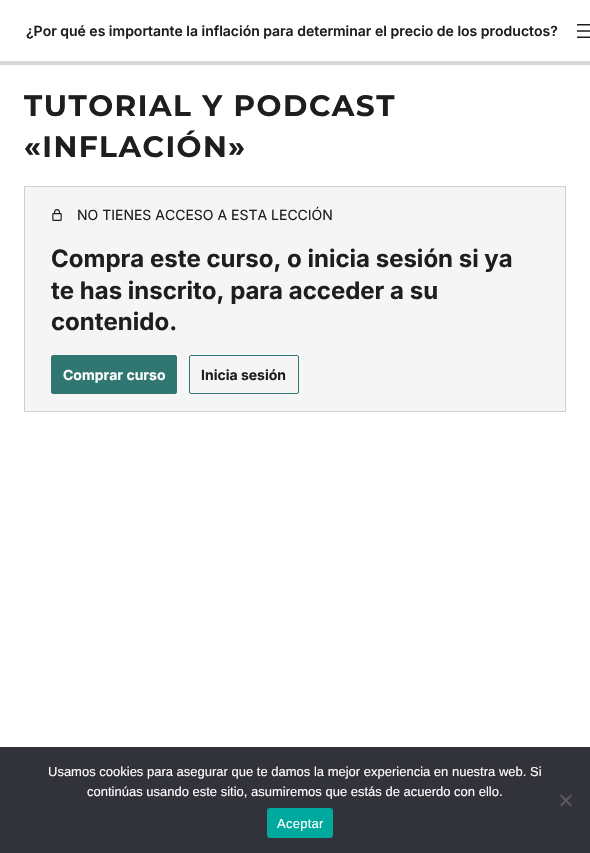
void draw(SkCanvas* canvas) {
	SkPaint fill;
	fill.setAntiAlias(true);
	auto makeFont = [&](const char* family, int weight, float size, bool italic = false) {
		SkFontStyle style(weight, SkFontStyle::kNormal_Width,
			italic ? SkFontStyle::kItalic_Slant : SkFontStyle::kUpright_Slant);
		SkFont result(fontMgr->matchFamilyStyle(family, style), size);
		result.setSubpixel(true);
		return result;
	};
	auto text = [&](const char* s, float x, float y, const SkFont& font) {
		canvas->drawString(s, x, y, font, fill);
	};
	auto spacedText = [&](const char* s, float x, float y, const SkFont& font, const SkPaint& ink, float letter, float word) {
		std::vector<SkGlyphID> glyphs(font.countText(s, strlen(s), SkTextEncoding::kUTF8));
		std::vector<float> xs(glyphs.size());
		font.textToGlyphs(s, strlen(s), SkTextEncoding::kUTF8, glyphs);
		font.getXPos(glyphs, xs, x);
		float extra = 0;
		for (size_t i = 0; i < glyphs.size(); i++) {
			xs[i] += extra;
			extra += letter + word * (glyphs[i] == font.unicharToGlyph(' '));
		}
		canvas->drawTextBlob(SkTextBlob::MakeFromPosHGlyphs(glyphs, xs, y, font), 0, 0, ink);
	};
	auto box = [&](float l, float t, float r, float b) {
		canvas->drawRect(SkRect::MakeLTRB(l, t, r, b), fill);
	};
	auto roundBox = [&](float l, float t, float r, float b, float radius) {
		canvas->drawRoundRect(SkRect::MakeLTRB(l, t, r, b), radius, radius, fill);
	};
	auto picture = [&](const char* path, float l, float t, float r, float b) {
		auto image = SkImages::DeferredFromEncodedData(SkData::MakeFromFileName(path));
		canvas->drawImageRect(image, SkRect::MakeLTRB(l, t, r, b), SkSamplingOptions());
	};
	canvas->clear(0xFFFFFFFF);
	picture("image0.png", 577, 24, 590, 38);
	fill.setColor(0xFFD8D8D8);
	box(0, 61, 590, 65);
	fill.setColor(0xFFF5F5F5);
	canvas->drawRect(SkRect::MakeLTRB(24.5f, 186.5f, 565.5f, 411.5f), fill);
	fill.setStyle(SkPaint::kStroke_Style);
	fill.setStrokeWidth(1);
	fill.setColor(0xFFD1D1D1);
	canvas->drawRect(SkRect::MakeLTRB(24.5f, 186.5f, 565.5f, 411.5f), fill);
	picture("image1.png", 52, 209, 62, 221);
	fill.setStyle(SkPaint::kFill_Style);
	fill.setColor(0xFF307771);
	canvas->drawRoundRect(SkRect::MakeLTRB(51.5f, 355.5f, 176.5f, 393.5f), 1.5f, 1.5f, fill);
	fill.setStyle(SkPaint::kStroke_Style);
	canvas->drawRoundRect(SkRect::MakeLTRB(51.5f, 355.5f, 176.5f, 393.5f), 1.5f, 1.5f, fill);
	canvas->drawRoundRect(SkRect::MakeLTRB(189.5f, 355.5f, 298.5f, 393.5f), 1.5f, 1.5f, fill);
	fill.setStyle(SkPaint::kFill_Style);
	fill.setColor(0xFF32323A);
	box(0, 747, 590, 853);
	fill.setColor(0xFF59595D);
	canvas->drawPath(SkPathBuilder().moveTo(570.5f, 794.5f).lineTo(572, 796).lineTo(561.5f, 806.5f).lineTo(560, 805).close().detach(), fill);
	canvas->drawPath(SkPathBuilder().moveTo(560, 796).lineTo(561.5f, 794.5f).lineTo(572, 805).lineTo(570.5f, 806.5f).close().detach(), fill);
	fill.setColor(0xFF00A99D);
	roundBox(267, 808, 333, 838, 3);
	auto font1 = makeFont("Inter", 600, 14);
	fill.setColor(0xFF1E1E1E);
	text("¿Por qué es importante la inflación para determinar el precio de los productos?", 26, 36, font1);
	auto font2 = makeFont("Montserrat", 700, 29.5f);
	spacedText("TUTORIAL Y PODCAST", 24, 116, font2, fill, 1.5f, 0);
	spacedText("«INFLACIÓN»", 24, 157, font2, fill, 1.5f, 0);
	auto font3 = makeFont("Inter", 400, 14);
	text("NO TIENES ACCESO A ESTA LECCIÓN", 77, 220, font3);
	auto font4 = makeFont("Inter", 700, 24);
	text("Compra este curso, o inicia sesión si ya", 51, 267, font4);
	text("te has inscrito, para acceder a su", 51, 299, font4);
	text("contenido.", 51, 330, font4);
	auto font5 = makeFont("Inter", 700, 14);
	fill.setColor(0xFFFFFFFF);
	text("Comprar curso", 63, 380, font5);
	fill.setColor(0xFF1E1E1E);
	text("Inicia sesión", 201, 380, font5);
	auto font6 = makeFont("Liberation Sans", 400, 13);
	fill.setColor(0xFFFFFFFF);
	text("Usamos cookies para asegurar que te damos la mejor experiencia en nuestra web. Si", 48, 776, font6);
	text("continúas usando este sitio, asumiremos que estás de acuerdo con ello.", 87, 796, font6);
	spacedText("Aceptar", 277, 828, font6, fill, 0.25f, 0);
}
